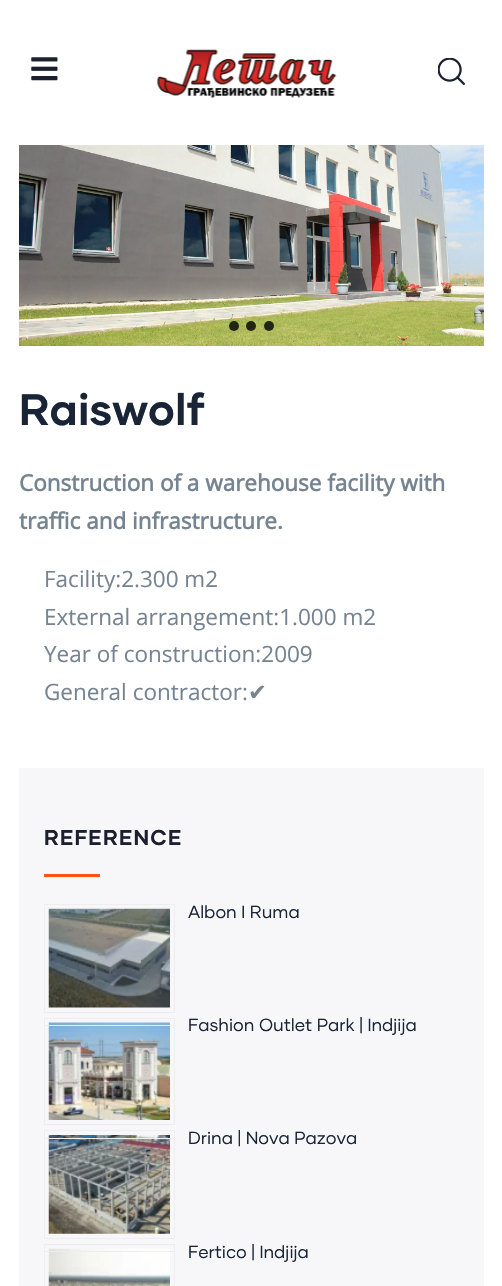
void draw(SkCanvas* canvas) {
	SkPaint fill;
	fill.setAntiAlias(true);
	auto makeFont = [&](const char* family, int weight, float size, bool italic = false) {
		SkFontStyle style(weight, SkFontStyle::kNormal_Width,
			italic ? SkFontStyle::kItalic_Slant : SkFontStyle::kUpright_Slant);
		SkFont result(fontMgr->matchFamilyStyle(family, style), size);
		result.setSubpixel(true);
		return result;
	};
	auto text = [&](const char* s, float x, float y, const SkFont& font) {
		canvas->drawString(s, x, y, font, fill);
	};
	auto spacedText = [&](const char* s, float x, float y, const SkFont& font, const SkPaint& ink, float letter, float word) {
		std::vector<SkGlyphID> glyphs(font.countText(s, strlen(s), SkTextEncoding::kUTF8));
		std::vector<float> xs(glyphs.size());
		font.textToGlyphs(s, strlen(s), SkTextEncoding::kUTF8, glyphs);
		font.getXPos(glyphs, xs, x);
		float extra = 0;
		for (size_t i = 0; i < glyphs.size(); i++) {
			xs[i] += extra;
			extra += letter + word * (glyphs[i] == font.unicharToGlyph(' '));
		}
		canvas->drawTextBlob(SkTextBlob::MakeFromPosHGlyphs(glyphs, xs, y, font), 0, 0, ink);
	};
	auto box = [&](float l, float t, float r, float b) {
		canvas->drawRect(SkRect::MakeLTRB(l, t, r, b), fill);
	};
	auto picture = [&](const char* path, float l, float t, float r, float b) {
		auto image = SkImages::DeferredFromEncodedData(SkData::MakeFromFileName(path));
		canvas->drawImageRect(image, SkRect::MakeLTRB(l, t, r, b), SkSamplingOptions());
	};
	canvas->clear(0xFFFFFFFF);
	picture("image0.png", 31, 57, 58, 81);
	picture("image1.png", 157, 49, 337, 98);
	picture("image2.png", 438, 58, 465, 85);
	picture("image3.png", 19, 145, 484, 346);
	fill.setColor(0xCC000000);
	canvas->drawCircle(234, 326, 5, fill);
	canvas->drawCircle(251, 326, 5, fill);
	canvas->drawCircle(269, 326, 5, fill);
	fill.setColor(0xFFF7F7F9);
	box(19, 768, 484, 1286);
	fill.setColor(0xFFFF5316);
	box(44, 874, 100, 877);
	fill.setStyle(SkPaint::kStroke_Style);
	fill.setStrokeWidth(1);
	fill.setColor(0xFFEEEEEE);
	canvas->drawRect(SkRect::MakeLTRB(44.5f, 1018.5f, 174.5f, 1124.5f), fill);
	picture("image5.png", 48, 1022, 170, 1120);
	fill.setStyle(SkPaint::kFill_Style);
	box(44, 1025, 175, 1026);
	fill.setStyle(SkPaint::kStroke_Style);
	canvas->drawRect(SkRect::MakeLTRB(44.5f, 904.5f, 174.5f, 1012.5f), fill);
	picture("image4.png", 48, 908, 170, 1008);
	canvas->drawRect(SkRect::MakeLTRB(44.5f, 1130.5f, 174.5f, 1238.5f), fill);
	picture("image6.png", 48, 1135, 170, 1234);
	fill.setStyle(SkPaint::kFill_Style);
	box(44, 1138, 175, 1139);
	fill.setStyle(SkPaint::kStroke_Style);
	canvas->drawRect(SkRect::MakeLTRB(44.5f, 1244.5f, 174.5f, 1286.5f), fill);
	picture("image7.png", 48, 1248, 170, 1286);
	fill.setStyle(SkPaint::kFill_Style);
	box(44, 1251, 175, 1252);
	auto font1 = makeFont("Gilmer", 700, 44);
	fill.setColor(0xFF192437);
	text("Raiswolf", 19, 425, font1);
	auto font2 = makeFont("Open Sans", 700, 22.5f);
	fill.setColor(0xFF768492);
	text("Construction of a warehouse facility with", 19, 491, font2);
	text("traffic and infrastructure.", 19, 529, font2);
	auto font3 = makeFont("Open Sans", 400, 22.5f);
	text("Facility:2.300 m2", 44, 587, font3);
	text("External arrangement:1.000 m2", 44, 625, font3);
	text("Year of construction:2009", 44, 662, font3);
	text("General contractor:", 44, 700, font3);
	auto font4 = makeFont("DejaVu Sans", 400, 22.5f);
	text("✔", 248, 700, font4);
	auto font5 = makeFont("Gilmer", 700, 21.25f);
	fill.setColor(0xFF1B1F2E);
	spacedText("REFERENCE", 44, 845, font5, fill, 1.25f, 0);
	auto font6 = makeFont("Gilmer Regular", 400, 17.5f);
	fill.setColor(0xFF192437);
	text("Albon I Ruma", 188, 918, font6);
	text("Fashion Outlet Park | Indjija", 188, 1031, font6);
	text("Drina | Nova Pazova", 188, 1144, font6);
	text("Fertico | Indjija", 188, 1258, font6);
}
